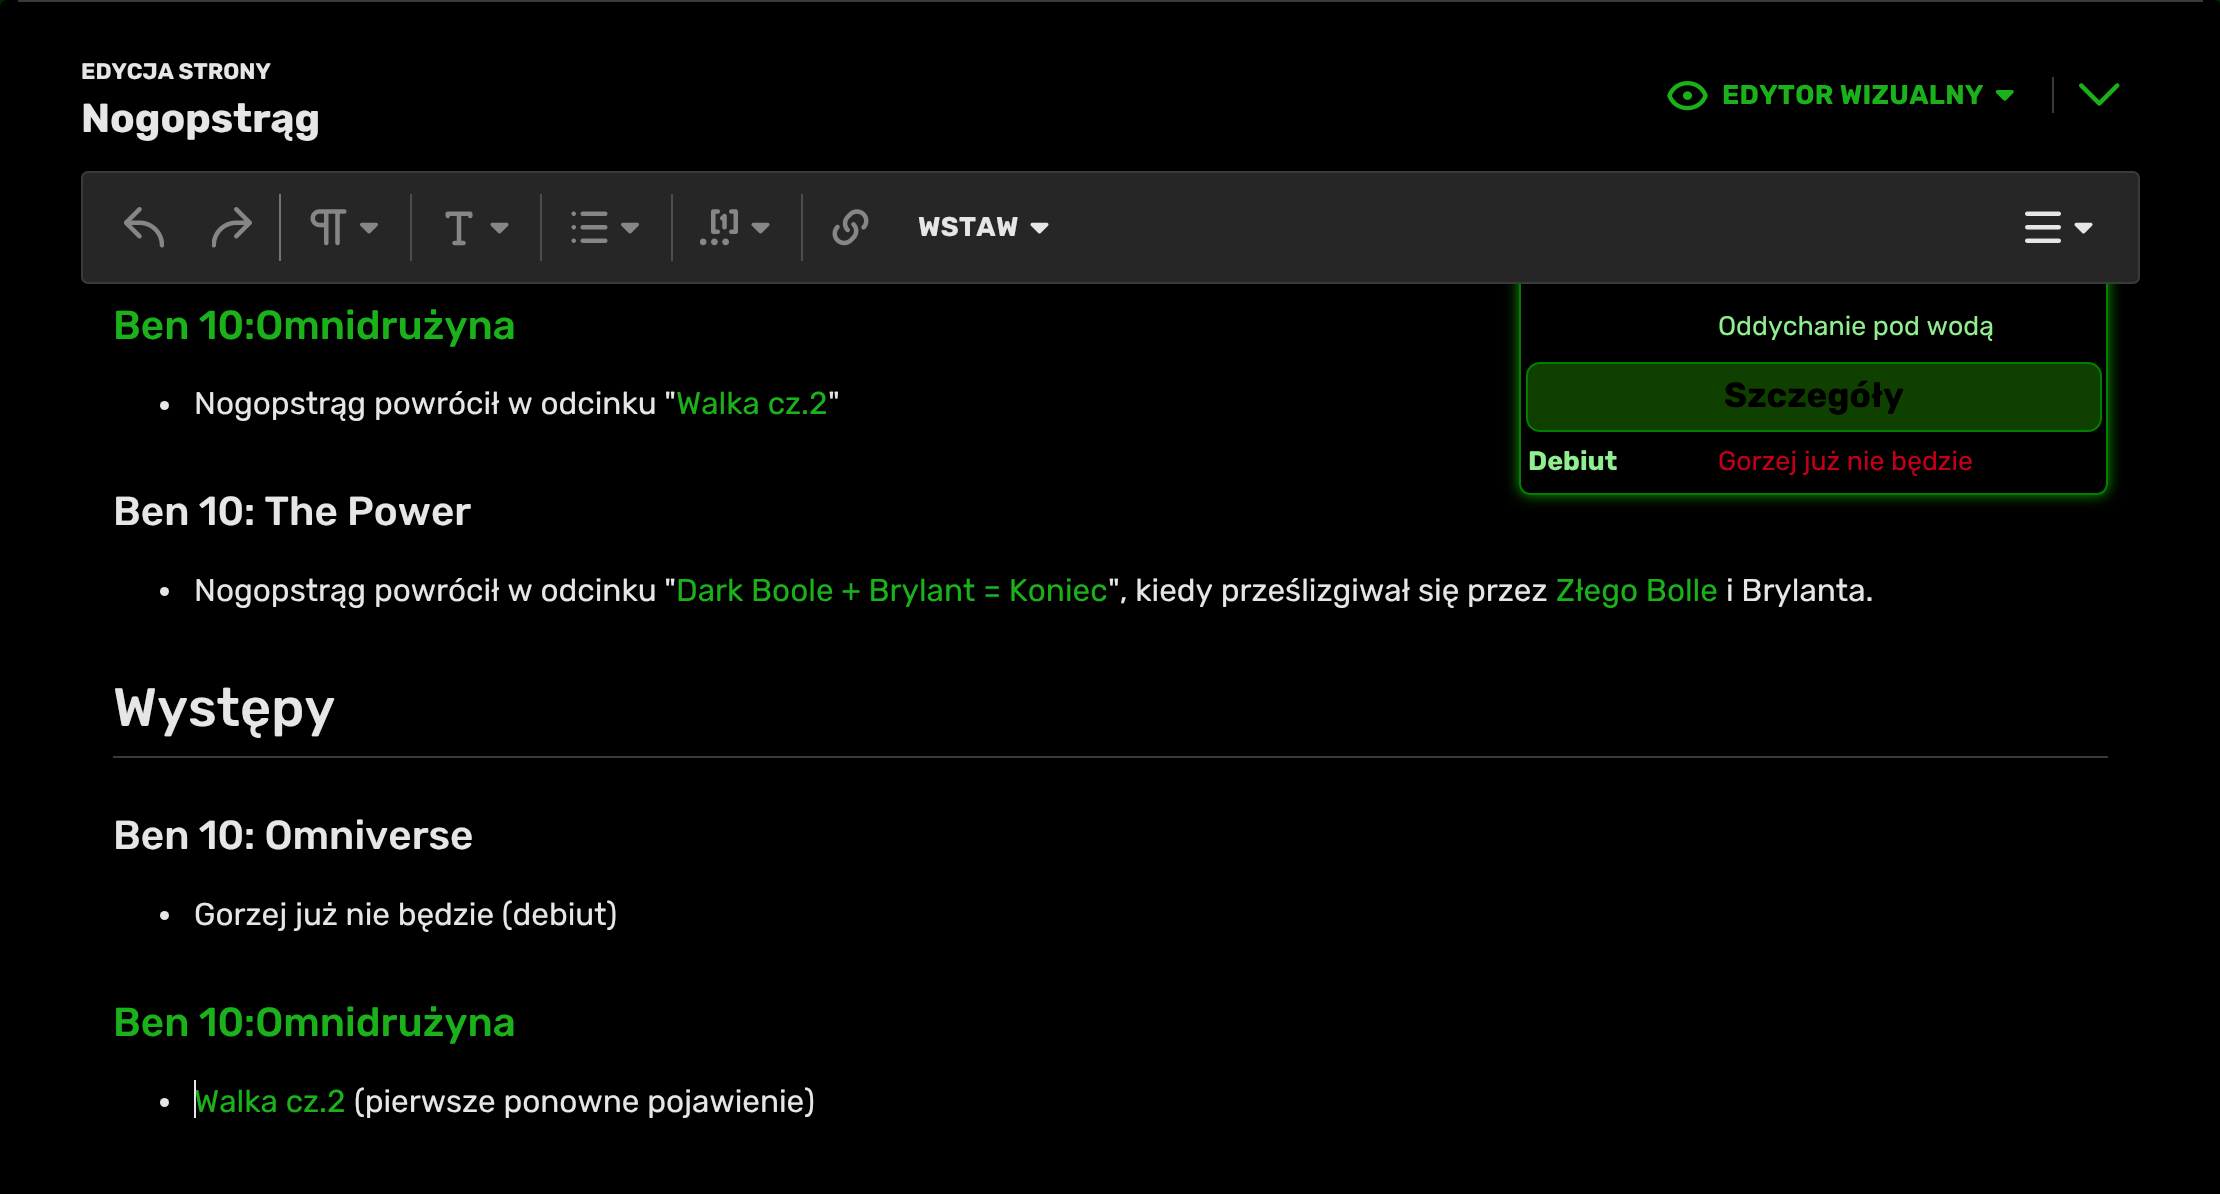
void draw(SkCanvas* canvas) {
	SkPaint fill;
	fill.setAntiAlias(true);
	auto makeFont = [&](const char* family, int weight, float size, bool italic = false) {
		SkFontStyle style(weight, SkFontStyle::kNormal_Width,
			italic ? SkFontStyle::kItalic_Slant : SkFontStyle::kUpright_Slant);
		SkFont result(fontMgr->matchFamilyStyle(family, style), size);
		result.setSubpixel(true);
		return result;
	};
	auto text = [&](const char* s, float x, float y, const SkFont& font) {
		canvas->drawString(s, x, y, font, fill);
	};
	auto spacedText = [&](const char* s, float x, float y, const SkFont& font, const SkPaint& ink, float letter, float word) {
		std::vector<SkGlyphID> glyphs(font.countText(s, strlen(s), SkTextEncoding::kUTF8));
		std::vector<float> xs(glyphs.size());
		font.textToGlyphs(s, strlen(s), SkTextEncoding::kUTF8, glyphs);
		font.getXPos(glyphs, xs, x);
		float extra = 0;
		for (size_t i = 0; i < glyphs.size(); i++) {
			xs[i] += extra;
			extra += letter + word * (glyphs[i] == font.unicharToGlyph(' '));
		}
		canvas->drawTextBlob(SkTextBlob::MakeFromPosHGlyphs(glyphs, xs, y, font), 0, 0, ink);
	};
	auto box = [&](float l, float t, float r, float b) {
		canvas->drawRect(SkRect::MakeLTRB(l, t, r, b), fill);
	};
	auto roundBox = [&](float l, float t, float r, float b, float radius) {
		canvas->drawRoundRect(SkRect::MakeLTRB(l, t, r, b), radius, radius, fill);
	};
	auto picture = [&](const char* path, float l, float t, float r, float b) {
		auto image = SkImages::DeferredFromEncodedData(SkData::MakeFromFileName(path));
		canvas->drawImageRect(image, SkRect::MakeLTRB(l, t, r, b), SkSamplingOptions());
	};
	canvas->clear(0xFF002700);
	fill.setColor(0xFF000000);
	roundBox(0, 0, 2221, 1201, 7);
	canvas->save();
	canvas->clipRect(SkRect::MakeLTRB(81, 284, 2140, 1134));
	fill.setColor(0xFF109900);
	fill.setMaskFilter(SkMaskFilter::MakeBlur(kNormal_SkBlurStyle, 7));
	canvas->drawRoundRect(SkRect::MakeLTRB(1519, -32, 2108, 495), 11, 11, fill);
	fill.setMaskFilter(nullptr);
	canvas->restore();
	fill.setColor(0xFF000000);
	canvas->drawPath(SkPathBuilder().moveTo(1519, 284).lineTo(2108, 284).lineTo(2108, 484).cubicTo(2108, 490, 2103, 495, 2097, 495).lineTo(1530, 495).cubicTo(1524, 495, 1519, 490, 1519, 484).close().detach(), fill);
	canvas->save();
	canvas->clipRect(SkRect::MakeLTRB(81, 284, 2140, 1134));
	fill.setStyle(SkPaint::kStroke_Style);
	fill.setStrokeWidth(2);
	fill.setColor(0xFF008000);
	canvas->drawRoundRect(SkRect::MakeLTRB(1520, -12, 2107, 494), 10, 10, fill);
	canvas->restore();
	fill.setStyle(SkPaint::kFill_Style);
	fill.setColor(0xFF3A3A3A);
	box(18, 0, 2203, 2);
	picture("image0.png", 1667, 81, 1708, 111);
	picture("image1.png", 1995, 90, 2014, 101);
	box(2052, 77, 2054, 113);
	picture("image2.png", 2079, 83, 2120, 106);
	fill.setColor(0xFF262626);
	canvas->drawRoundRect(SkRect::MakeLTRB(82, 172, 2139, 283), 6, 6, fill);
	fill.setStyle(SkPaint::kStroke_Style);
	fill.setColor(0xFF3A3A3A);
	canvas->drawRoundRect(SkRect::MakeLTRB(82, 172, 2139, 283), 6, 6, fill);
	fill.setStyle(SkPaint::kFill_Style);
	fill.setColor(0xFF737373);
	box(279, 194, 281, 261);
	picture("image3.png", 124, 207, 164, 248);
	picture("image4.png", 212, 207, 252, 248);
	fill.setColor(0xFF4D4D4D);
	box(410, 194, 412, 261);
	picture("image5.png", 310, 209, 347, 246);
	picture("image6.png", 360, 222, 378, 234);
	box(540, 194, 542, 261);
	picture("image7.png", 445, 211, 473, 246);
	picture("image8.png", 490, 222, 509, 234);
	box(671, 194, 673, 261);
	picture("image9.png", 571, 211, 608, 243);
	picture("image6.png", 621, 222, 639, 234);
	box(801, 194, 803, 261);
	picture("image10.png", 700, 209, 738, 246);
	picture("image8.png", 751, 222, 770, 234);
	picture("image11.png", 832, 209, 869, 246);
	picture("image12.png", 1030, 222, 1049, 234);
	picture("image13.png", 2025, 211, 2061, 243);
	picture("image12.png", 2074, 222, 2093, 234);
	fill.setColor(0xFF104000);
	canvas->drawRoundRect(SkRect::MakeLTRB(1527, 363, 2101, 431), 13, 13, fill);
	fill.setStyle(SkPaint::kStroke_Style);
	fill.setColor(0xFF008000);
	canvas->drawRoundRect(SkRect::MakeLTRB(1527, 363, 2101, 431), 13, 13, fill);
	fill.setStyle(SkPaint::kFill_Style);
	fill.setColor(0xFFE6E6E6);
	canvas->drawCircle(164.5f, 405.5f, 4.5f, fill);
	canvas->drawCircle(164.5f, 591.5f, 4.5f, fill);
	fill.setColor(0xFF3A3A3A);
	box(113, 756, 2108, 758);
	fill.setColor(0xFFE6E6E6);
	canvas->drawCircle(164.5f, 915.5f, 4.5f, fill);
	canvas->drawCircle(164.5f, 1102.5f, 4.5f, fill);
	auto font1 = makeFont("Rubik", 700, 22.5f);
	text("EDYCJA STRONY", 81, 79, font1);
	auto font2 = makeFont("Rubik", 700, 40.5f);
	text("Nogopstrąg", 81, 132, font2);
	auto font3 = makeFont("Rubik", 700, 27);
	fill.setColor(0xFF1BB11B);
	spacedText("EDYTOR WIZUALNY", 1722, 104, font3, fill, 0.3f, 0);
	fill.setColor(0xFFE6E6E6);
	spacedText("WSTAW", 918, 236, font3, fill, 0.3f, 0);
	auto font4 = makeFont("Rubik", 500, 40.5f);
	fill.setColor(0xFF1BB11B);
	text("Ben 10:Omnidrużyna", 113, 339, font4);
	auto font5 = makeFont("Rubik", 400, 26.75f);
	fill.setColor(0xFF90EE90);
	text("Oddychanie pod wodą", 1718, 335, font5);
	auto font6 = makeFont("Rubik", 700, 35);
	fill.setColor(0xFF000000);
	text("Szczegóły", 1724, 407, font6);
	auto font7 = makeFont("Rubik", 700, 26.75f);
	fill.setColor(0xFF90EE90);
	text("Debiut", 1528, 470, font7);
	fill.setColor(0xFFBF0017);
	text("Gorzej już nie będzie", 1718, 470, font5);
	auto font8 = makeFont("Rubik", 400, 31.5f);
	fill.setColor(0xFFE6E6E6);
	text("Nogopstrąg powrócił w odcinku \"", 194, 414, font8);
	fill.setColor(0xFF1BB11B);
	text("Walka cz.2", 676, 414, font8);
	fill.setColor(0xFFE6E6E6);
	text("\"", 828, 414, font8);
	text("Ben 10: The Power", 113, 525, font4);
	text("Nogopstrąg powrócił w odcinku \"", 194, 601, font8);
	fill.setColor(0xFF1BB11B);
	text("Dark Boole + Brylant = Koniec", 676, 601, font8);
	fill.setColor(0xFFE6E6E6);
	text("\", kiedy prześlizgiwał się przez", 1108, 601, font8);
	fill.setColor(0xFF1BB11B);
	text("Złego Bolle", 1556, 601, font8);
	fill.setColor(0xFFE6E6E6);
	text("i Brylanta.", 1726, 601, font8);
	auto font9 = makeFont("Rubik", 500, 54);
	text("Występy", 113, 726, font9);
	text("Ben 10: Omniverse", 113, 849, font4);
	text("Gorzej już nie będzie (debiut)", 194, 925, font8);
	fill.setColor(0xFF1BB11B);
	text("Ben 10:Omnidrużyna", 113, 1036, font4);
	text("Walka cz.2", 194, 1112, font8);
	fill.setColor(0xFFE6E6E6);
	text("(pierwsze ponowne pojawienie)", 354, 1112, font8);
	box(194, 1080, 196, 1118);
}
